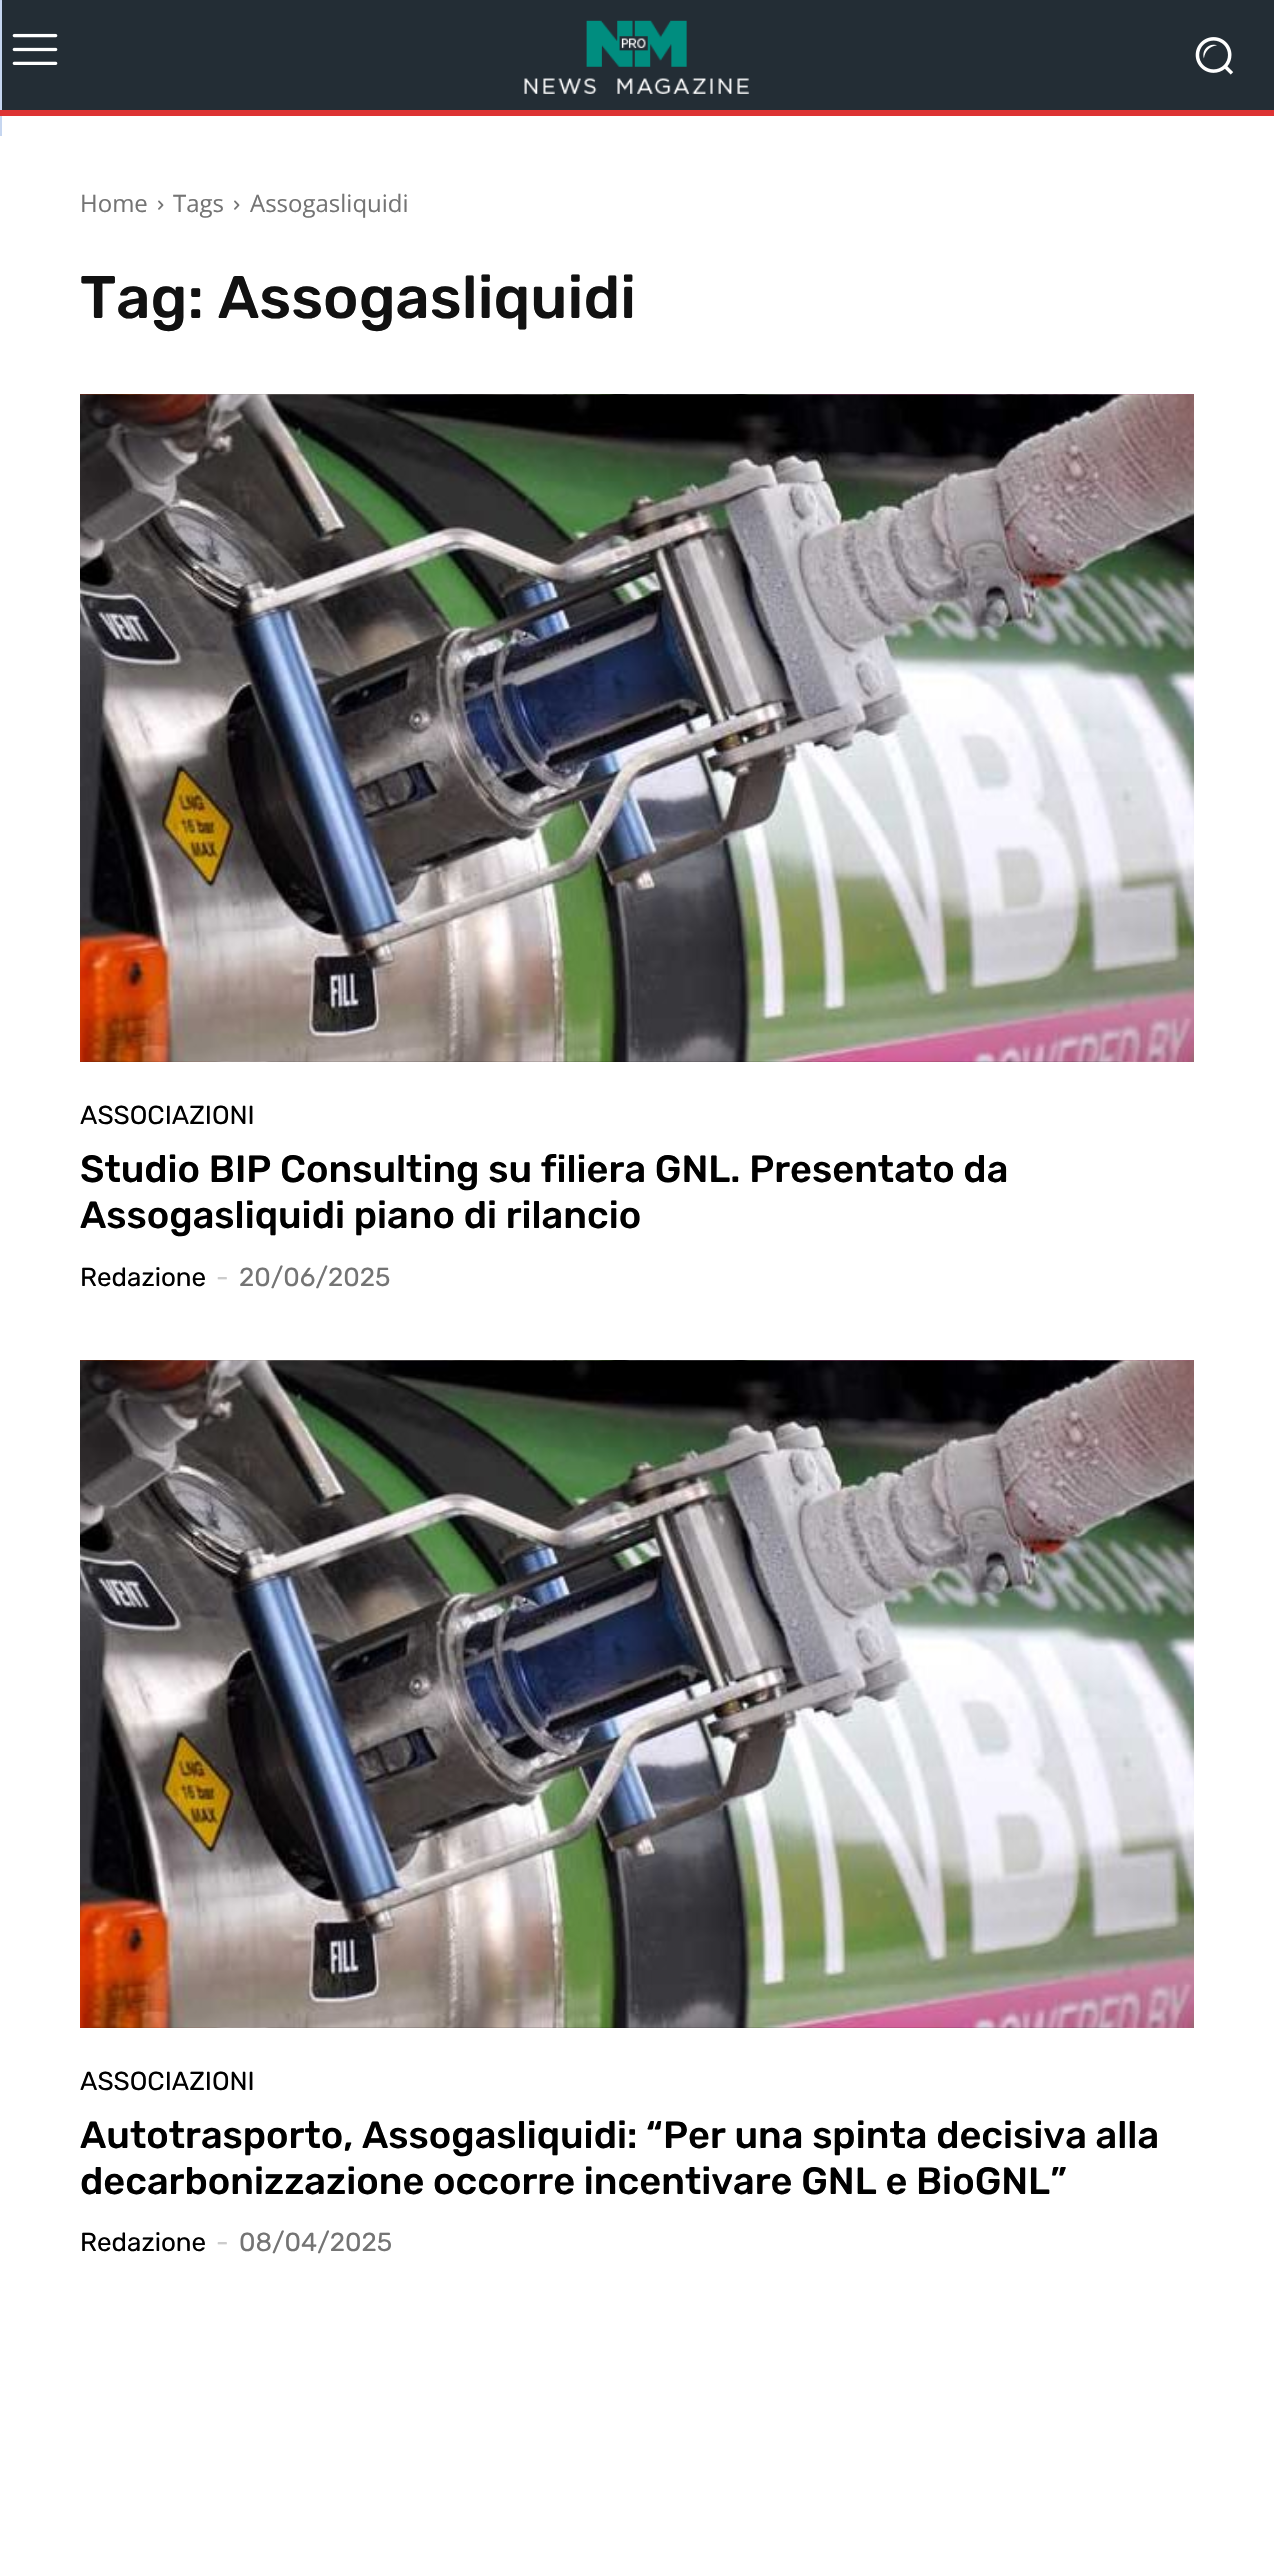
void draw(SkCanvas* canvas) {
	SkPaint fill;
	fill.setAntiAlias(true);
	auto makeFont = [&](const char* family, int weight, float size, bool italic = false) {
		SkFontStyle style(weight, SkFontStyle::kNormal_Width,
			italic ? SkFontStyle::kItalic_Slant : SkFontStyle::kUpright_Slant);
		SkFont result(fontMgr->matchFamilyStyle(family, style), size);
		result.setSubpixel(true);
		return result;
	};
	auto text = [&](const char* s, float x, float y, const SkFont& font) {
		canvas->drawString(s, x, y, font, fill);
	};
	auto box = [&](float l, float t, float r, float b) {
		canvas->drawRect(SkRect::MakeLTRB(l, t, r, b), fill);
	};
	auto picture = [&](const char* path, float l, float t, float r, float b) {
		auto image = SkImages::DeferredFromEncodedData(SkData::MakeFromFileName(path));
		canvas->drawImageRect(image, SkRect::MakeLTRB(l, t, r, b), SkSamplingOptions());
	};
	canvas->clear(0xFFFFFFFF);
	picture("image0.png", 0, 0, 2, 136);
	fill.setColor(0xFF232D35);
	box(2, 0, 1274, 110);
	picture("image1.png", 12, 33, 58, 65);
	picture("image2.png", 524, 20, 750, 94);
	picture("image3.png", 1195, 37, 1234, 75);
	fill.setColor(0xFFDD3333);
	box(0, 110, 1274, 116);
	picture("image4.png", 158, 200, 164, 210);
	picture("image4.png", 234, 200, 240, 210);
	picture("image5.png", 80, 394, 1194, 1062);
	picture("image6.png", 80, 1360, 1194, 2028);
	auto font1 = makeFont("Open Sans", 400, 24);
	fill.setColor(0xFF747474);
	text("Home", 80, 212, font1);
	text("Tags", 173, 212, font1);
	text("Assogasliquidi", 250, 212, font1);
	auto font2 = makeFont("Rubik", 500, 60);
	fill.setColor(0xFF111111);
	text("Tag: Assogasliquidi", 80, 318, font2);
	auto font3 = makeFont("Rubik", 400, 26);
	fill.setColor(0xFF000000);
	text("ASSOCIAZIONI", 80, 1124, font3);
	auto font4 = makeFont("Rubik", 500, 38);
	text("Studio BIP Consulting su filiera GNL. Presentato da", 80, 1182, font4);
	text("Assogasliquidi piano di rilancio", 80, 1228, font4);
	text("Redazione", 80, 1286, font3);
	fill.setColor(0xFFCCCCCC);
	text("-", 216, 1286, font3);
	fill.setColor(0xFF747474);
	text("20/06/2025", 239, 1286, font3);
	fill.setColor(0xFF000000);
	text("ASSOCIAZIONI", 80, 2090, font3);
	text("Autotrasporto, Assogasliquidi: “Per una spinta decisiva alla", 80, 2148, font4);
	text("decarbonizzazione occorre incentivare GNL e BioGNL”", 80, 2194, font4);
	text("Redazione", 80, 2251, font3);
	fill.setColor(0xFFCCCCCC);
	text("-", 216, 2251, font3);
	fill.setColor(0xFF747474);
	text("08/04/2025", 239, 2251, font3);
}
